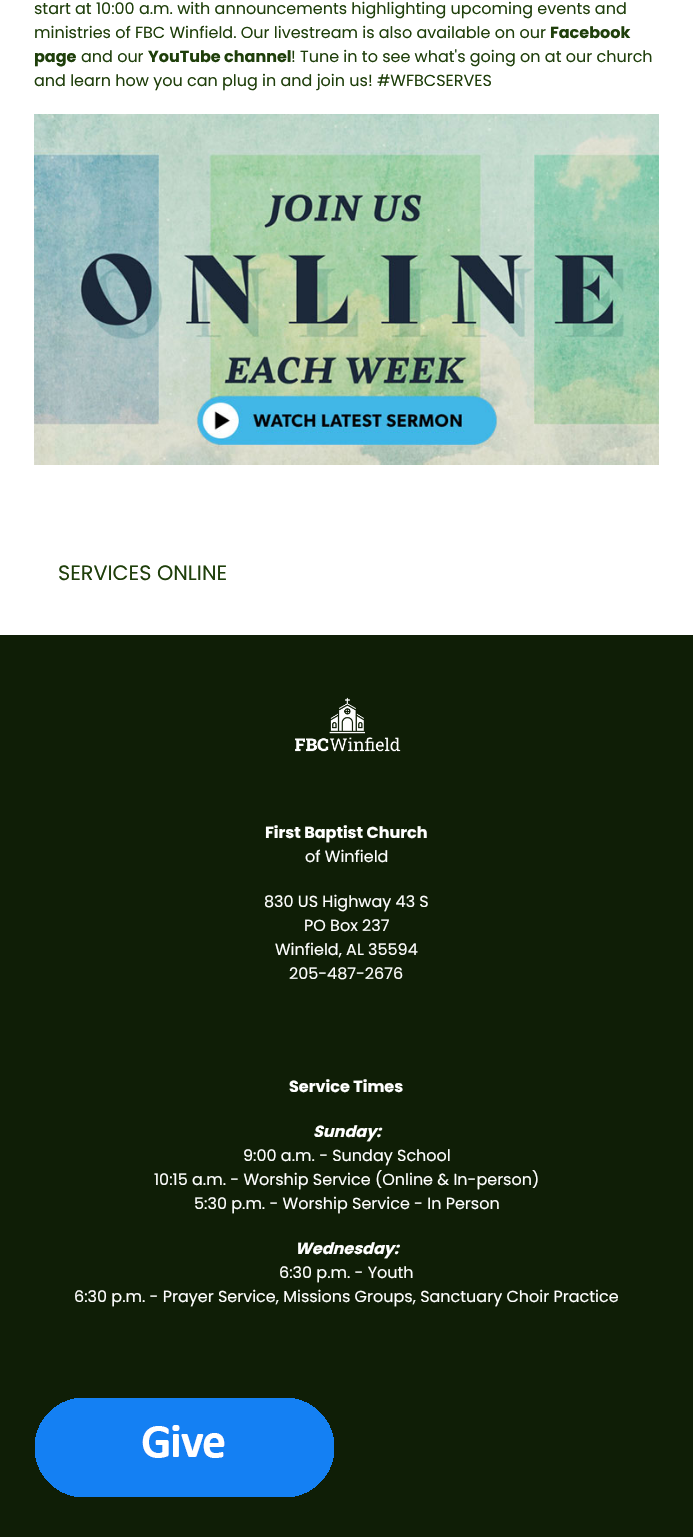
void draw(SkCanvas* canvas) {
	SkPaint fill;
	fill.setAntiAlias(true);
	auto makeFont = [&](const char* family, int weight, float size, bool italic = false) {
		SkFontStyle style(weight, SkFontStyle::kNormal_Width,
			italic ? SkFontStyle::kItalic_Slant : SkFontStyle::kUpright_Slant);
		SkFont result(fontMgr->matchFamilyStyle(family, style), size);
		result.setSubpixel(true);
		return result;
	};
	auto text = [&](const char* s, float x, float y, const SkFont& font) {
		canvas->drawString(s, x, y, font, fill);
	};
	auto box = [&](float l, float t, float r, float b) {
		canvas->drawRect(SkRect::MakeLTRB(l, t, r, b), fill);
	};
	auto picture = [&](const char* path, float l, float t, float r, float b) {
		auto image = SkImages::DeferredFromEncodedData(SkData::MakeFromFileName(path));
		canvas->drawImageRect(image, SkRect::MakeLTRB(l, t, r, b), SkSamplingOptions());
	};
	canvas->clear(0xFFFFFFFF);
	picture("image0.png", 34, 114, 659, 465);
	fill.setColor(0xFF0F1E06);
	box(0, 635, 693, 1537);
	picture("image1.png", 295, 697, 401, 752);
	picture("image2.png", 35, 1398, 334, 1497);
	auto font1 = makeFont("Poppins", 400, 16);
	fill.setColor(0xFF1F3F0B);
	text("start at 10:00 a.m. with announcements highlighting upcoming events and", 34, 14, font1);
	text("ministries of FBC Winfield. Our livestream is also available on our", 34, 38, font1);
	auto font2 = makeFont("Poppins", 700, 16);
	text("Facebook", 550, 38, font2);
	text("page", 34, 62, font2);
	text("and our", 81, 62, font1);
	text("YouTube channel", 148, 62, font2);
	text("! Tune in to see what's going on at our church", 291, 62, font1);
	text("and learn how you can plug in and join us! #WFBCSERVES", 34, 86, font1);
	auto font3 = makeFont("Poppins", 400, 20.75f);
	text("SERVICES ONLINE", 58, 580, font3);
	fill.setColor(0xFFFFFFFF);
	text("First Baptist Church", 265, 838, font2);
	text("of Winfield", 305, 862, font1);
	text("830 US Highway 43 S", 264, 907, font1);
	text("PO Box 237", 304, 931, font1);
	text("Winfield, AL 35594", 275, 955, font1);
	text("205-487-2676", 289, 979, font1);
	text("Service Times", 289, 1092, font2);
	auto font4 = makeFont("Poppins", 700, 16, true);
	text("Sunday:", 313, 1137, font4);
	text("9:00 a.m. - Sunday School", 243, 1161, font1);
	text("10:15 a.m. - Worship Service (Online & In-person)", 154, 1185, font1);
	text("5:30 p.m. - Worship Service - In Person", 194, 1209, font1);
	text("Wednesday:", 295, 1254, font4);
	text("6:30 p.m. - Youth", 279, 1278, font1);
	text("6:30 p.m. - Prayer Service, Missions Groups, Sanctuary Choir Practice", 74, 1302, font1);
}
